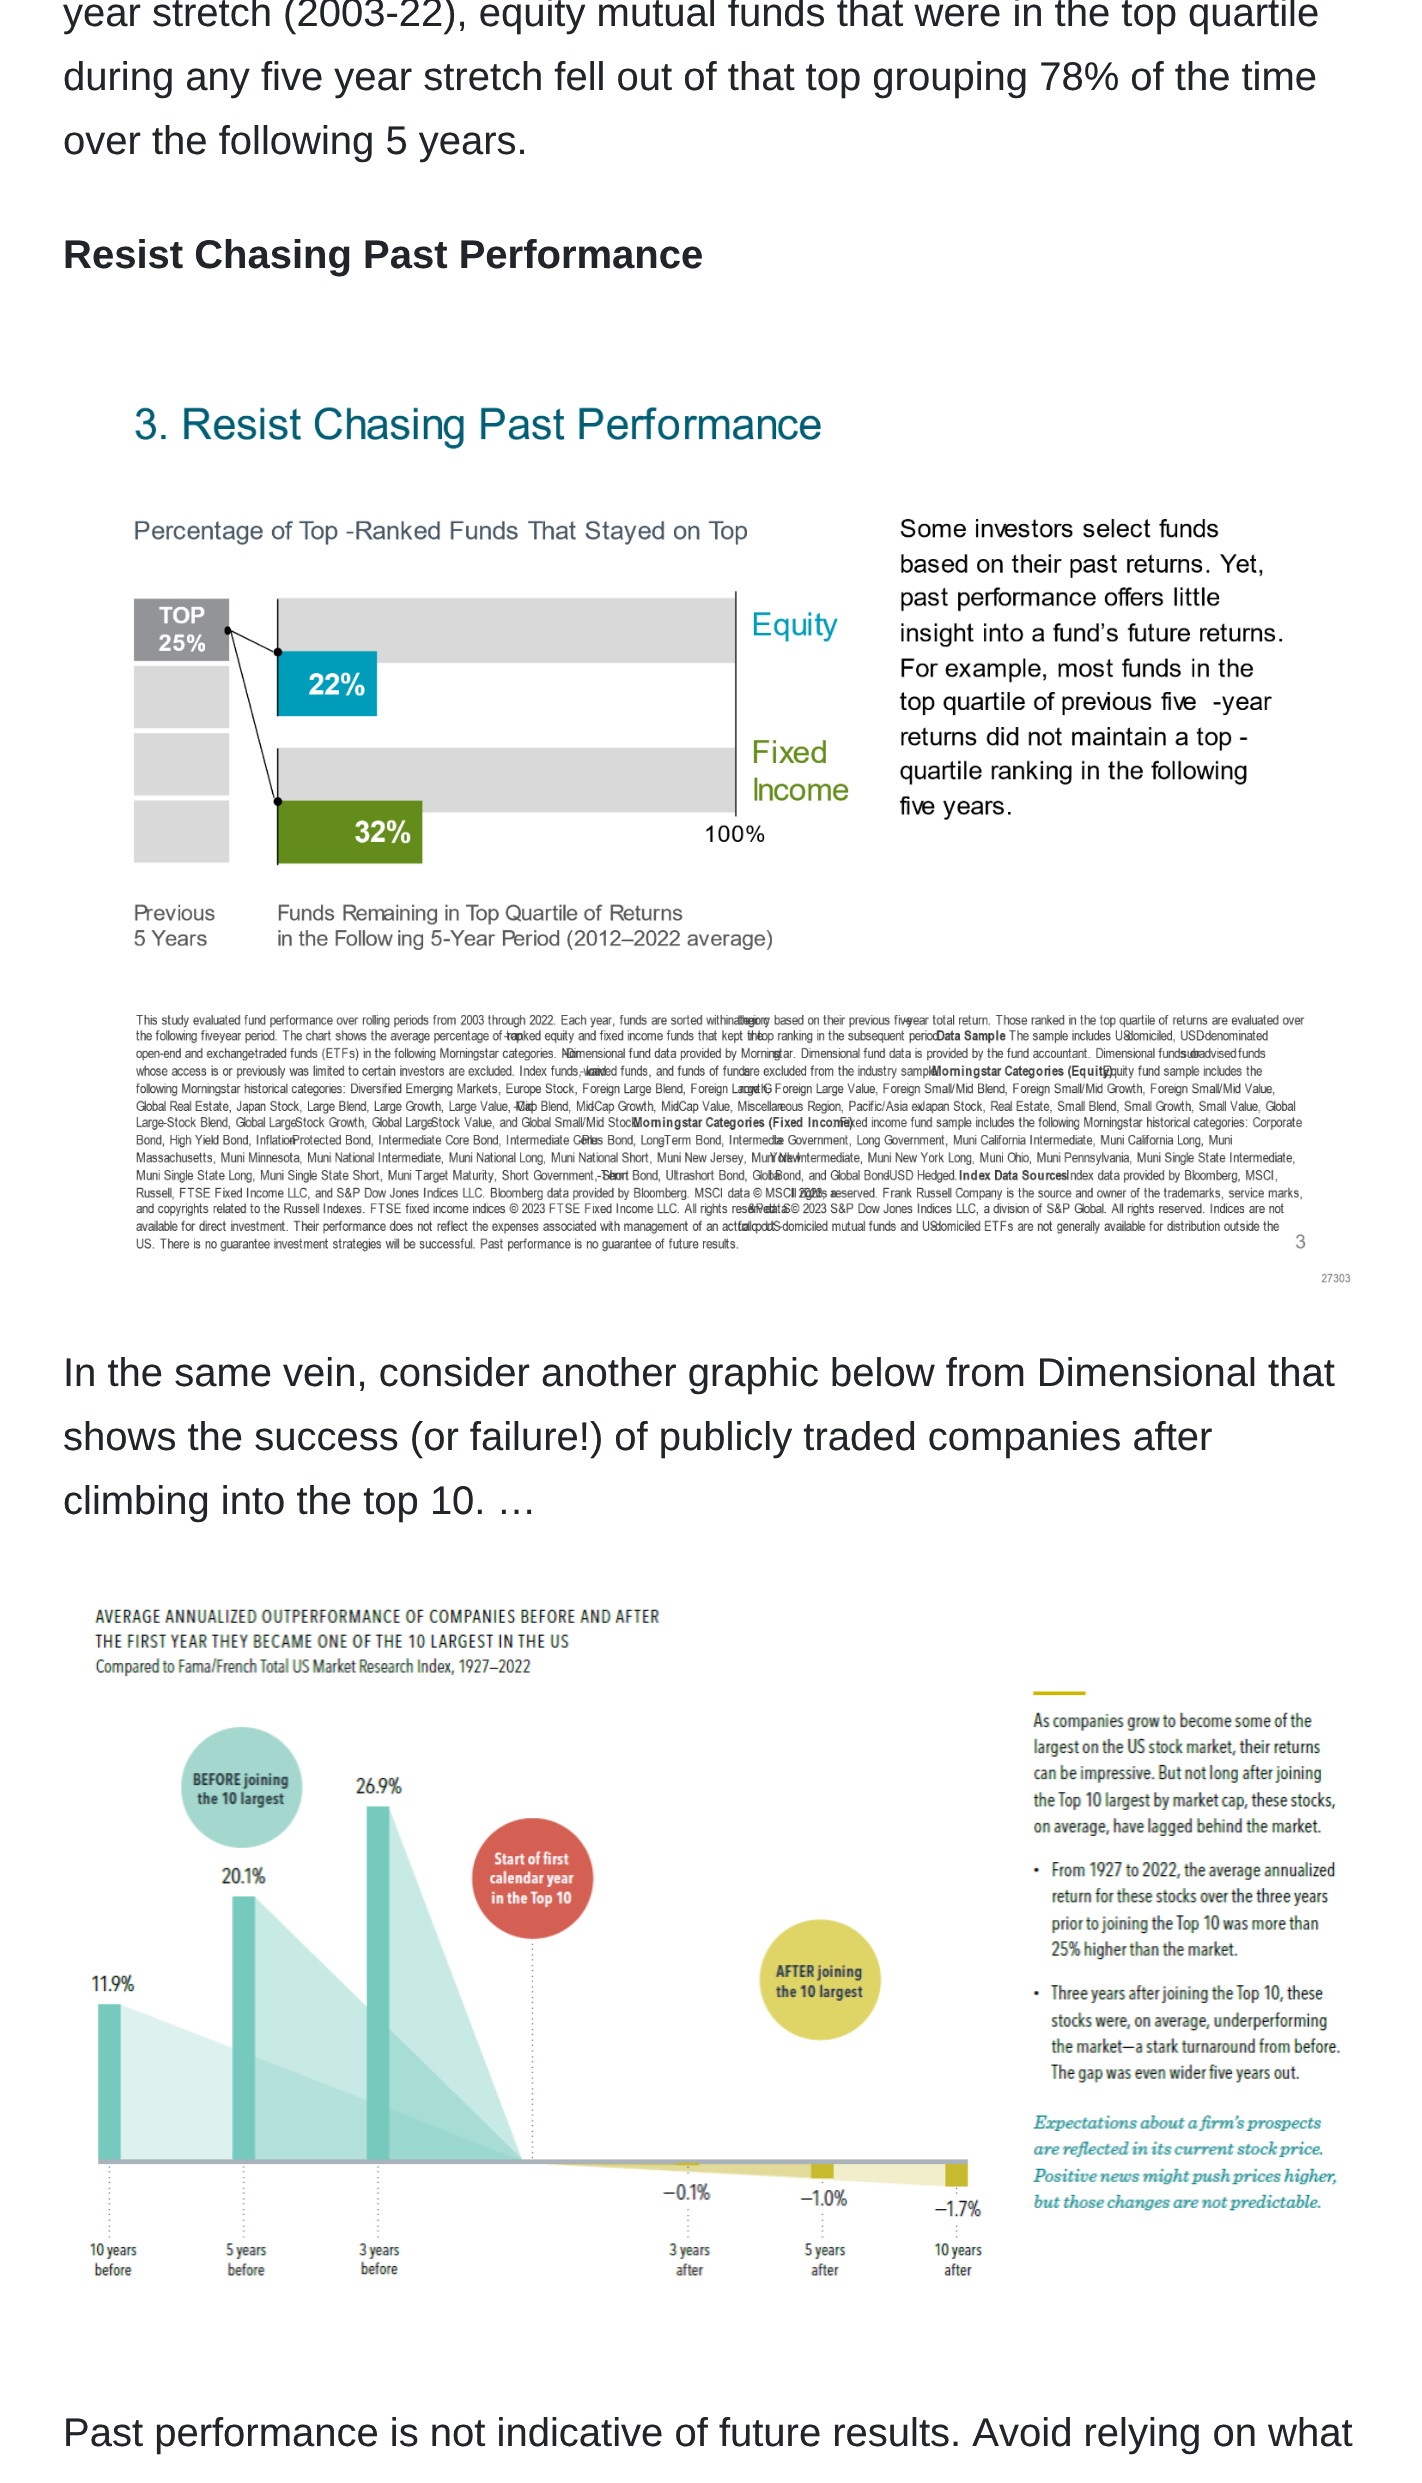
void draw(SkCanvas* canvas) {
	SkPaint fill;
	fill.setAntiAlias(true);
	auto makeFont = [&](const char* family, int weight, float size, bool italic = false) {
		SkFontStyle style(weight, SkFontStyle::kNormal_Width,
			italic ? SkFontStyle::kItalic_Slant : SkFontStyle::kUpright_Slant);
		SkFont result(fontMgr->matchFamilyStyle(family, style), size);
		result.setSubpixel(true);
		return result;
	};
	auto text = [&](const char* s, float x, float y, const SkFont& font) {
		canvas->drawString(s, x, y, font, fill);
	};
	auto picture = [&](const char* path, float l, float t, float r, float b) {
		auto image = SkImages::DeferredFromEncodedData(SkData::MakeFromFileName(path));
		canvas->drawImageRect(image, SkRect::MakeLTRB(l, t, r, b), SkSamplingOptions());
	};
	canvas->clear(0xFFFFFFFF);
	picture("image0.png", 133, 407, 1351, 1283);
	picture("image1.png", 89, 1609, 1340, 2277);
	auto font1 = makeFont("Liberation Sans", 400, 40);
	fill.setColor(0xFF212529);
	text("year stretch (2003-22), equity mutual funds that were in the top quartile", 63, 26, font1);
	text("during any five year stretch fell out of that top grouping 78% of the time", 63, 90, font1);
	text("over the following 5 years.", 63, 154, font1);
	auto font2 = makeFont("Liberation Sans", 700, 40);
	text("Resist Chasing Past Performance", 63, 268, font2);
	text("In the same vein, consider another graphic below from Dimensional that", 63, 1386, font1);
	text("shows the success (or failure!) of publicly traded companies after", 63, 1450, font1);
	text("climbing into the top 10. …", 63, 1514, font1);
	text("Past performance is not indicative of future results. Avoid relying on what", 63, 2446, font1);
}
